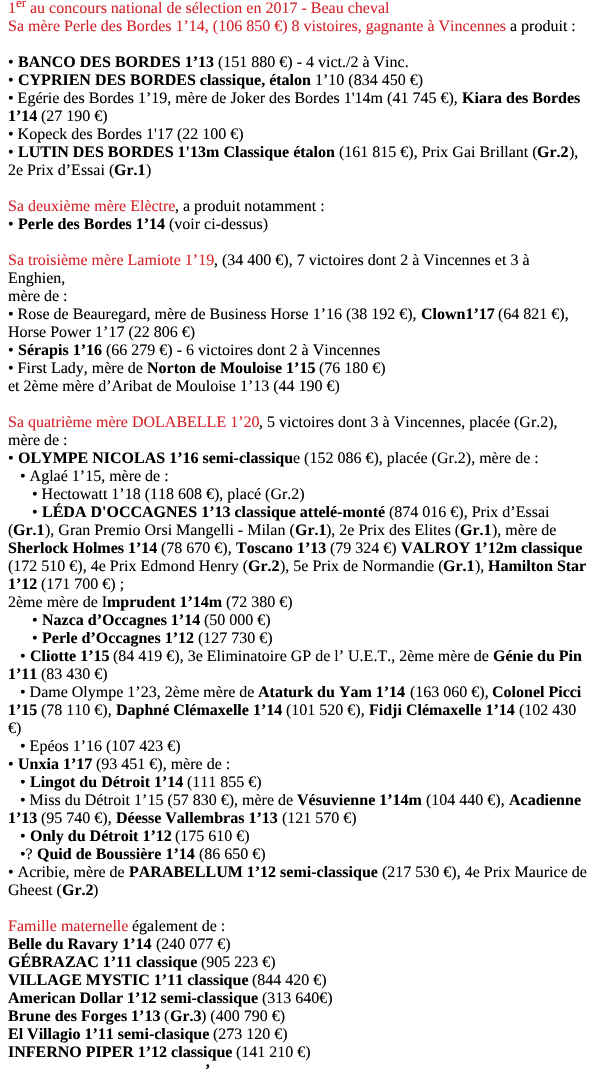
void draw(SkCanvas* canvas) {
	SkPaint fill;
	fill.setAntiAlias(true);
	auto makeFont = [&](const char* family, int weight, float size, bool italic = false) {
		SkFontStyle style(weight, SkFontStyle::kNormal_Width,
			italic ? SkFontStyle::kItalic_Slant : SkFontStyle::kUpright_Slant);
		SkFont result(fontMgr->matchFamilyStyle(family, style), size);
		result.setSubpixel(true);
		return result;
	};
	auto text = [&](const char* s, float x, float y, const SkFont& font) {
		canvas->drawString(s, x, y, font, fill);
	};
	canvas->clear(0xFFFFFFFF);
	auto font1 = makeFont("Liberation Serif", 400, 16);
	fill.setColor(0xFFD7242B);
	text("1", 8, 13, font1);
	auto font2 = makeFont("Liberation Serif", 400, 13);
	text("er", 16, 7, font2);
	text("au concours national de sélection en 2017 - Beau cheval", 30, 13, font1);
	text("Sa mère Perle des Bordes 1’14, (106 850 €) 8 vistoires, gagnante à Vincennes", 8, 31, font1);
	fill.setColor(0xFF000000);
	text("a produit :", 510, 31, font1);
	text("•", 8, 67, font1);
	auto font3 = makeFont("Liberation Serif", 700, 16);
	text("BANCO DES BORDES 1’13", 18, 67, font3);
	text("(151 880 €) - 4 vict./2 à Vinc.", 218, 67, font1);
	text("•", 8, 85, font1);
	text("CYPRIEN DES BORDES classique, étalon", 18, 85, font3);
	text("1’10 (834 450 €)", 315, 85, font1);
	text("• Egérie des Bordes 1’19, mère de Joker des Bordes 1'14m (41 745 €),", 8, 103, font1);
	text("Kiara des Bordes", 462, 103, font3);
	text("1’14", 8, 121, font3);
	text("(27 190 €)", 41, 121, font1);
	text("• Kopeck des Bordes 1'17 (22 100 €)", 8, 139, font1);
	text("•", 8, 157, font1);
	text("LUTIN DES BORDES 1'13m Classique étalon", 18, 157, font3);
	text("(161 815 €), Prix Gai Brillant (", 339, 157, font1);
	text("Gr.2", 537, 157, font3);
	text("),", 569, 157, font1);
	text("2e Prix d’Essai (", 8, 175, font1);
	text("Gr.1", 114, 175, font3);
	text(")", 146, 175, font1);
	fill.setColor(0xFFD7242B);
	text("Sa deuxième mère Elèctre", 8, 211, font1);
	fill.setColor(0xFF000000);
	text(", a produit notamment :", 175, 211, font1);
	text("•", 8, 229, font1);
	text("Perle des Bordes 1’14", 18, 229, font3);
	text("(voir ci-dessus)", 169, 229, font1);
	fill.setColor(0xFFD7242B);
	text("Sa troisième mère Lamiote 1’19", 8, 265, font1);
	fill.setColor(0xFF000000);
	text(", (34 400 €), 7 victoires dont 2 à Vincennes et 3 à", 214, 265, font1);
	text("Enghien,", 8, 283, font1);
	text("mère de :", 8, 301, font1);
	text("• Rose de Beauregard, mère de Business Horse 1’16 (38 192 €),", 8, 319, font1);
	text("Clown1’17", 421, 319, font3);
	text("(64 821 €),", 498, 319, font1);
	text("Horse Power 1’17 (22 806 €)", 8, 337, font1);
	text("•", 8, 355, font1);
	text("Sérapis 1’16", 18, 355, font3);
	text("(66 279 €) - 6 victoires dont 2 à Vincennes", 106, 355, font1);
	text("• First Lady, mère de", 8, 373, font1);
	text("Norton de Mouloise 1’15", 147, 373, font3);
	text("(76 180 €)", 319, 373, font1);
	text("et 2ème mère d’Aribat de Mouloise 1’13 (44 190 €)", 8, 391, font1);
	fill.setColor(0xFFD7242B);
	text("Sa quatrième mère DOLABELLE 1’20", 8, 427, font1);
	fill.setColor(0xFF000000);
	text(", 5 victoires dont 3 à Vincennes, placée (Gr.2),", 259, 427, font1);
	text("mère de :", 8, 445, font1);
	text("•", 8, 463, font1);
	text("OLYMPE NICOLAS 1’16 semi-classiqu", 18, 463, font3);
	text("e (152 086 €), placée (Gr.2), mère de :", 293, 463, font1);
	text("• Aglaé 1’15, mère de :", 20, 481, font1);
	text("• Hectowatt 1’18 (118 608 €), placé (Gr.2)", 32, 499, font1);
	text("•", 32, 517, font1);
	text("LÉDA D'OCCAGNES 1’13 classique attelé-monté", 42, 517, font3);
	text("(874 016 €), Prix d’Essai", 389, 517, font1);
	text("(", 8, 535, font1);
	text("Gr.1", 13, 535, font3);
	text("), Gran Premio Orsi Mangelli - Milan (", 45, 535, font1);
	text("Gr.1", 295, 535, font3);
	text("), 2e Prix des Elites (", 326, 535, font1);
	text("Gr.1", 460, 535, font3);
	text("), mère de", 492, 535, font1);
	text("Sherlock Holmes 1’14", 8, 553, font3);
	text("(78 670 €),", 161, 553, font1);
	text("Toscano 1’13", 236, 553, font3);
	text("(79 324 €)", 330, 553, font1);
	text("VALROY 1’12m classique", 401, 553, font3);
	text("(172 510 €), 4e Prix Edmond Henry (", 8, 571, font1);
	text("Gr.2", 248, 571, font3);
	text("), 5e Prix de Normandie (", 280, 571, font1);
	text("Gr.1", 443, 571, font3);
	text("),", 475, 571, font1);
	text("Hamilton Star", 488, 571, font3);
	text("1’12", 8, 589, font3);
	text("(171 700 €) ;", 41, 589, font1);
	text("2ème mère de I", 8, 607, font1);
	text("mprudent 1’14m", 107, 607, font3);
	text("(72 380 €)", 226, 607, font1);
	text("•", 32, 625, font1);
	text("Nazca d’Occagnes 1’14", 42, 625, font3);
	text("(50 000 €)", 204, 625, font1);
	text("•", 32, 643, font1);
	text("Perle d’Occagnes 1’12", 42, 643, font3);
	text("(127 730 €)", 198, 643, font1);
	text("•", 20, 661, font1);
	text("Cliotte 1’15", 30, 661, font3);
	text("(84 419 €), 3e Eliminatoire GP de l’ U.E.T., 2ème mère de", 113, 661, font1);
	text("Génie du Pin", 493, 661, font3);
	text("1’11", 8, 679, font3);
	text("(83 430 €)", 41, 679, font1);
	text("• Dame Olympe 1’23, 2ème mère de", 20, 697, font1);
	text("Ataturk du Yam 1’14", 258, 697, font3);
	text("(163 060 €),", 410, 697, font1);
	text("Colonel Picci", 492, 697, font3);
	text("1’15", 8, 715, font3);
	text("(78 110 €),", 41, 715, font1);
	text("Daphné Clémaxelle 1’14", 116, 715, font3);
	text("(101 520 €),", 286, 715, font1);
	text("Fidji Clémaxelle 1’14", 369, 715, font3);
	text("(102 430", 519, 715, font1);
	text("€)", 8, 733, font1);
	text("• Epéos 1’16 (107 423 €)", 20, 751, font1);
	text("•", 8, 769, font1);
	text("Unxia 1’17", 18, 769, font3);
	text("(93 451 €), mère de :", 96, 769, font1);
	text("•", 20, 787, font1);
	text("Lingot du Détroit 1’14", 30, 787, font3);
	text("(111 855 €)", 187, 787, font1);
	text("• Miss du Détroit 1’15 (57 830 €), mère de", 20, 805, font1);
	text("Vésuvienne 1’14m", 297, 805, font3);
	text("(104 440 €),", 426, 805, font1);
	text("Acadienne", 509, 805, font3);
	text("1’13", 8, 823, font3);
	text("(95 740 €),", 41, 823, font1);
	text("Déesse Vallembras 1’13", 116, 823, font3);
	text("(121 570 €)", 282, 823, font1);
	text("•", 20, 841, font1);
	text("Only du Détroit 1’12", 30, 841, font3);
	text("(175 610 €)", 175, 841, font1);
	text("•?", 20, 859, font1);
	text("Quid de Boussière 1’14", 37, 859, font3);
	text("(86 650 €)", 199, 859, font1);
	text("• Acribie, mère de", 8, 877, font1);
	text("PARABELLUM 1’12 semi-classique", 129, 877, font3);
	text("(217 530 €), 4e Prix Maurice de", 382, 877, font1);
	text("Gheest (", 8, 895, font1);
	text("Gr.2", 62, 895, font3);
	text(")", 93, 895, font1);
	fill.setColor(0xFFD7242B);
	text("Famille maternelle", 8, 931, font1);
	fill.setColor(0xFF000000);
	text("également de :", 132, 931, font1);
	text("Belle du Ravary 1’14", 8, 949, font3);
	text("(240 077 €)", 156, 949, font1);
	text("GÉBRAZAC 1’11 classique", 8, 967, font3);
	text("(905 223 €)", 201, 967, font1);
	text("VILLAGE MYSTIC 1’11 classique", 8, 985, font3);
	text("(844 420 €)", 252, 985, font1);
	text("American Dollar 1’12 semi-classique", 8, 1003, font3);
	text("(313 640€)", 262, 1003, font1);
	text("Brune des Forges 1’13", 8, 1021, font3);
	text("(", 164, 1021, font1);
	text("Gr.3", 170, 1021, font3);
	text(") (400 790 €)", 201, 1021, font1);
	text("El Villagio 1’11 semi-clasique", 8, 1039, font3);
	text("(273 120 €)", 213, 1039, font1);
	text("INFERNO PIPER 1’12 classique", 8, 1057, font3);
	text("(141 210 €)", 236, 1057, font1);
	text("’", 205, 1075, font3);
}
